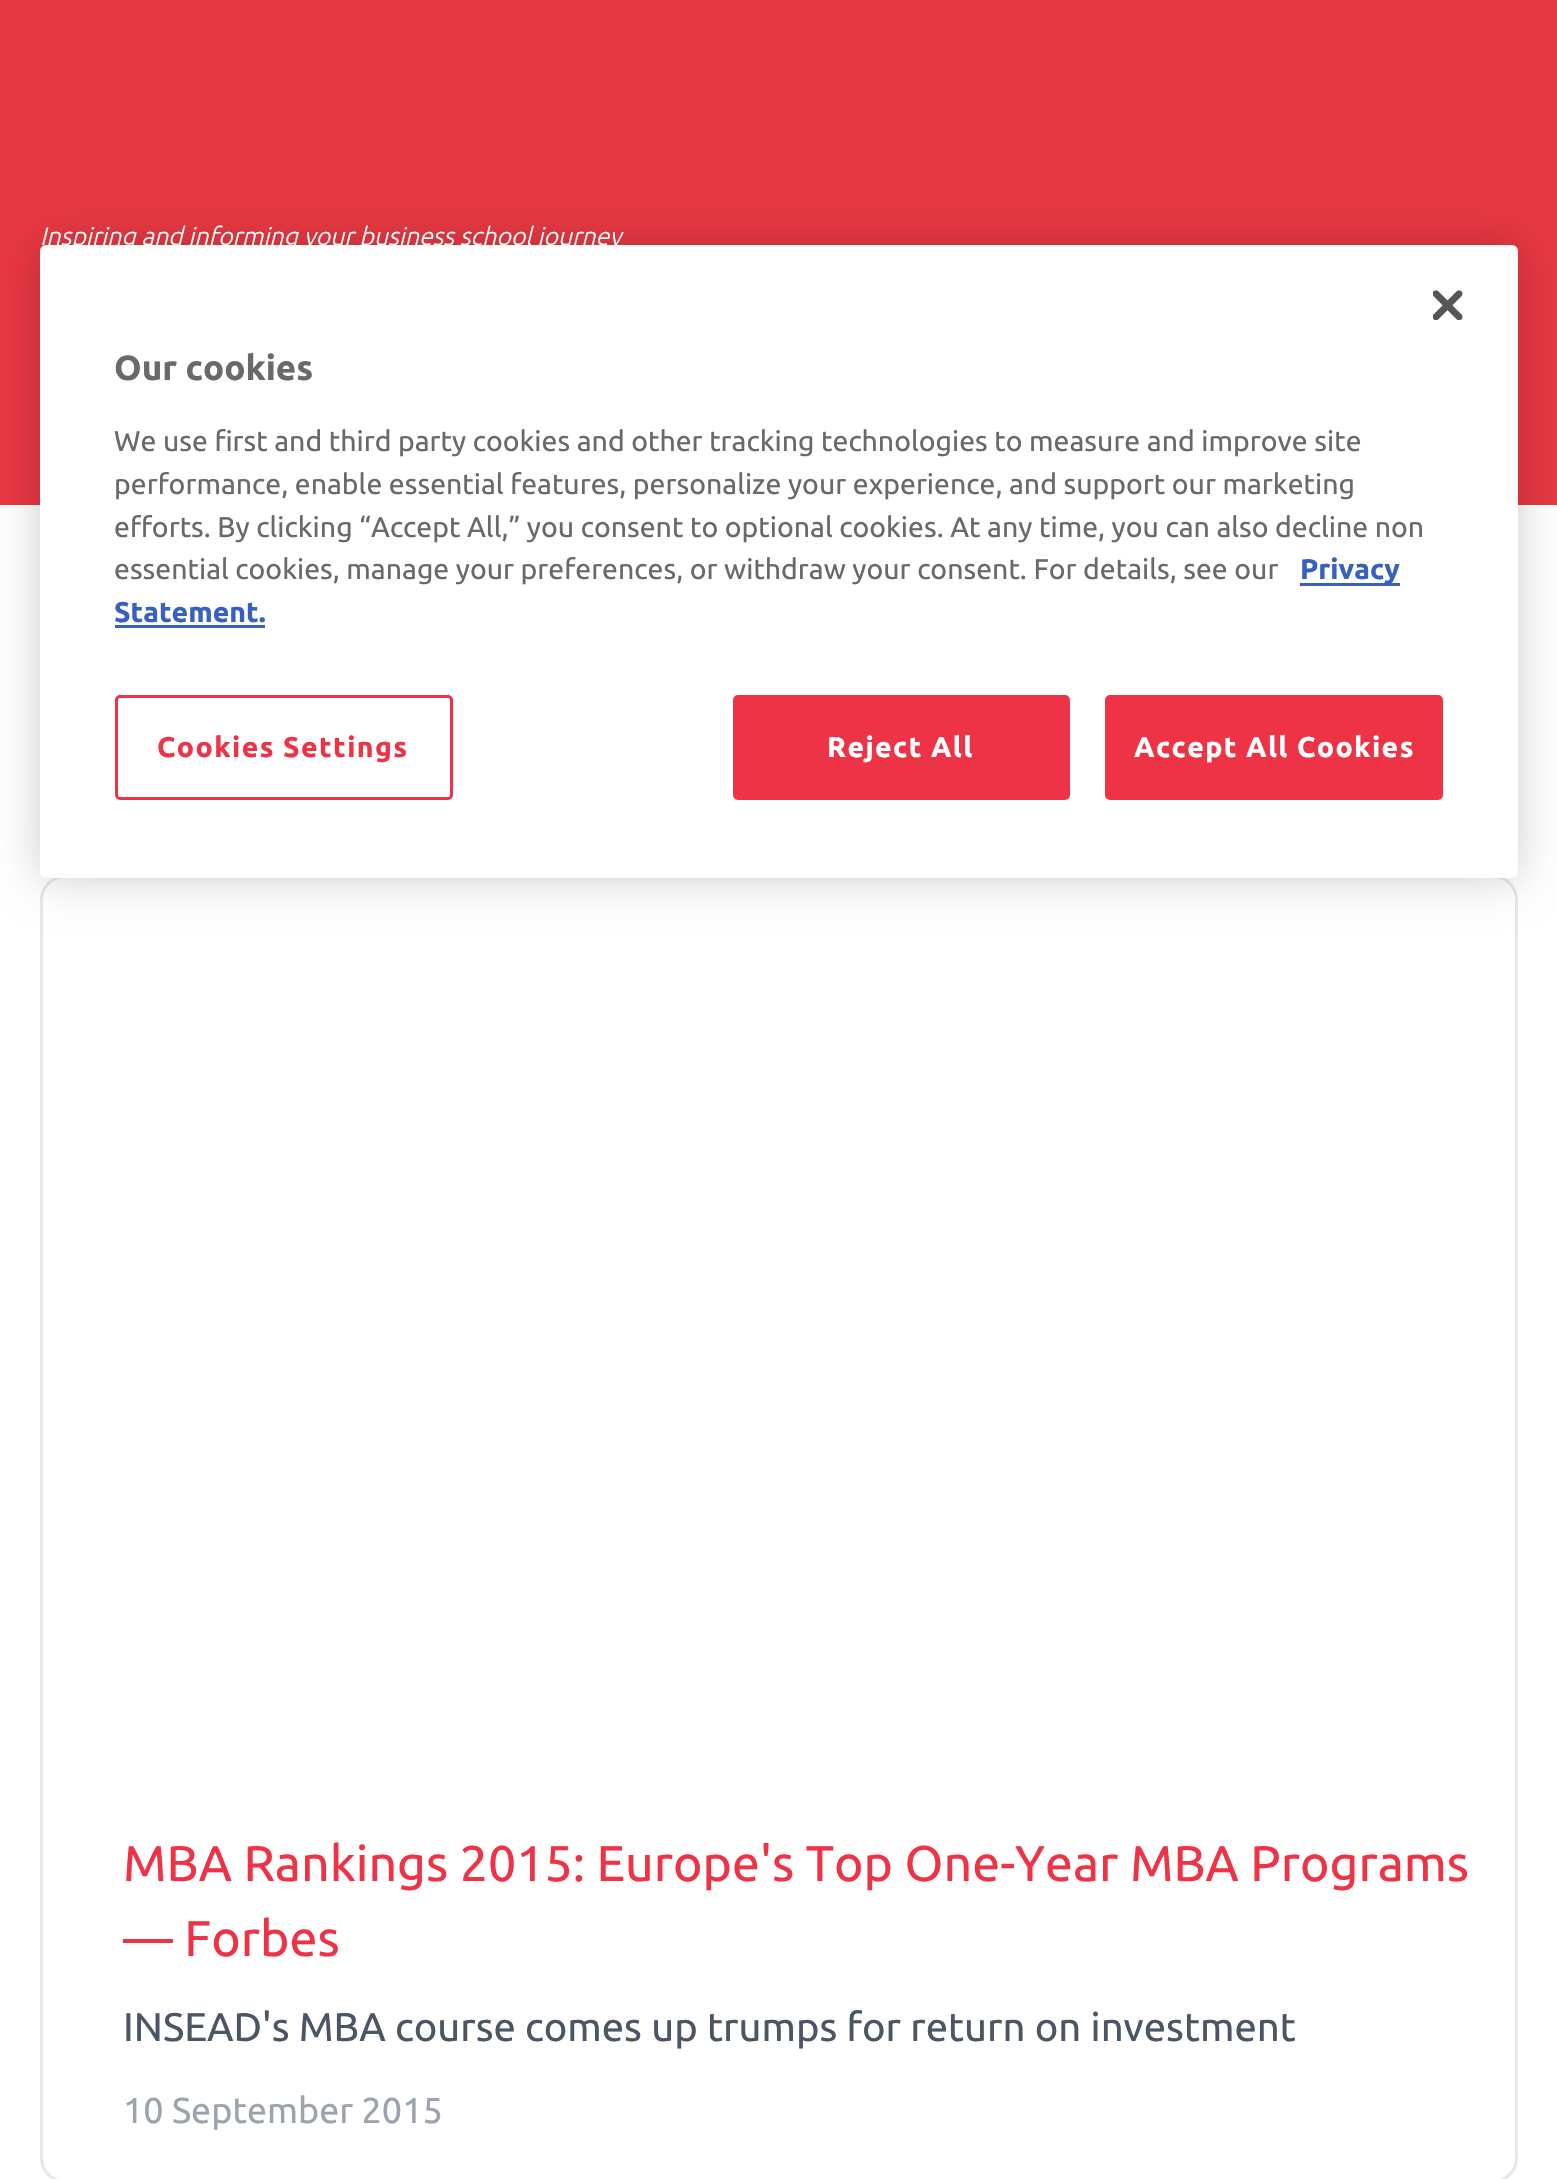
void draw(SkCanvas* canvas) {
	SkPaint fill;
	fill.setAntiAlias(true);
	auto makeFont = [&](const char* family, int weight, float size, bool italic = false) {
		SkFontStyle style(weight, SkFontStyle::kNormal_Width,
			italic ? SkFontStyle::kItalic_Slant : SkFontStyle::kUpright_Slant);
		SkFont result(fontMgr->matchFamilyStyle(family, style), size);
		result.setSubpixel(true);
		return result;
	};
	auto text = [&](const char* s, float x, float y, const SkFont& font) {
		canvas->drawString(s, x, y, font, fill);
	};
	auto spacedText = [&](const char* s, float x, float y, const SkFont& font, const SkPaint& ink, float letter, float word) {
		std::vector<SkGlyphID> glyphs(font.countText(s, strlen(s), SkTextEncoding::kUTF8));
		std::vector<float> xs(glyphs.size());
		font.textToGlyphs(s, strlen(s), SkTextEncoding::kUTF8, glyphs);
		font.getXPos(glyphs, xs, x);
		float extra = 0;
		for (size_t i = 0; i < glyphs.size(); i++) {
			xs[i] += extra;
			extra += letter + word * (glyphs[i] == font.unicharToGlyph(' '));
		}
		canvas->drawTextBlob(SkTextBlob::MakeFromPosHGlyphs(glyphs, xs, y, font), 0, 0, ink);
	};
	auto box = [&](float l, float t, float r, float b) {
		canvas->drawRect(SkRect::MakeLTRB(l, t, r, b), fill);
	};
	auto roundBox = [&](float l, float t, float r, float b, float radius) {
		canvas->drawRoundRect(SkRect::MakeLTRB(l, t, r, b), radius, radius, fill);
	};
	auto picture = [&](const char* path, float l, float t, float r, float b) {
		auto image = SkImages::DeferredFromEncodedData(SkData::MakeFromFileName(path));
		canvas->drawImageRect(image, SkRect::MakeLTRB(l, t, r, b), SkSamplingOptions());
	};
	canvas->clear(0xFFFFFFFF);
	fill.setColor(0xFFE73842);
	box(0, 0, 1557, 505);
	fill.setStyle(SkPaint::kStroke_Style);
	fill.setStrokeWidth(3);
	fill.setColor(0xFFE5E7EB);
	canvas->drawRoundRect(SkRect::MakeLTRB(41.5f, 876.5f, 1516.5f, 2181.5f), 23.5f, 23.5f, fill);
	fill.setStyle(SkPaint::kFill_Style);
	fill.setColor(0x33000000);
	fill.setMaskFilter(SkMaskFilter::MakeBlur(kNormal_SkBlurStyle, 22.5f));
	canvas->drawRoundRect(SkRect::MakeLTRB(40, 245, 1518, 878), 6, 6, fill);
	fill.setMaskFilter(nullptr);
	fill.setColor(0xFFFFFFFF);
	roundBox(40, 245, 1518, 878, 6);
	picture("image0.png", 1433, 290, 1463, 320);
	fill.setColor(0xFF3860BE);
	box(1300, 583, 1400, 586);
	box(115, 625, 265, 628);
	fill.setStyle(SkPaint::kStroke_Style);
	fill.setColor(0xFFEF3346);
	canvas->drawRoundRect(SkRect::MakeLTRB(116.5f, 696.5f, 451.5f, 798.5f), 3.5f, 3.5f, fill);
	fill.setStyle(SkPaint::kFill_Style);
	canvas->drawRoundRect(SkRect::MakeLTRB(734.5f, 696.5f, 1068.5f, 798.5f), 3.5f, 3.5f, fill);
	fill.setStyle(SkPaint::kStroke_Style);
	canvas->drawRoundRect(SkRect::MakeLTRB(734.5f, 696.5f, 1068.5f, 798.5f), 3.5f, 3.5f, fill);
	fill.setStyle(SkPaint::kFill_Style);
	canvas->drawRoundRect(SkRect::MakeLTRB(1106.5f, 696.5f, 1441.5f, 798.5f), 3.5f, 3.5f, fill);
	fill.setStyle(SkPaint::kStroke_Style);
	canvas->drawRoundRect(SkRect::MakeLTRB(1106.5f, 696.5f, 1441.5f, 798.5f), 3.5f, 3.5f, fill);
	auto font1 = makeFont("Ubuntu", 300, 25, true);
	fill.setStyle(SkPaint::kFill_Style);
	fill.setColor(0xFFFFFFFF);
	text("Inspiring and informing your business school journey", 40, 245, font1);
	auto font2 = makeFont("Ubuntu", 400, 50);
	fill.setColor(0xFFEF3346);
	text("MBA Rankings 2015: Europe's Top One-Year MBA Programs", 123, 1881, font2);
	text("— Forbes", 123, 1956, font2);
	auto font3 = makeFont("Ubuntu", 400, 40);
	fill.setColor(0xFF4B5563);
	text("INSEAD's MBA course comes up trumps for return on investment", 123, 2041, font3);
	auto font4 = makeFont("Ubuntu", 400, 36);
	fill.setColor(0xFF9CA3AF);
	text("10 September 2015", 123, 2123, font4);
	auto font5 = makeFont("Ubuntu", 700, 35);
	fill.setColor(0xFF696969);
	text("Our cookies", 114, 380, font5);
	auto font6 = makeFont("Ubuntu", 400, 28.45f);
	text("We use first and third party cookies and other tracking technologies to measure and improve site", 114, 451, font6);
	text("performance, enable essential features, personalize your experience, and support our marketing", 114, 494, font6);
	text("efforts. By clicking “Accept All,” you consent to optional cookies. At any time, you can also decline non", 114, 537, font6);
	text("essential cookies, manage your preferences, or withdraw your consent. For details, see our", 114, 579, font6);
	auto font7 = makeFont("Ubuntu", 700, 28.45f);
	fill.setColor(0xFF3860BE);
	text("Privacy", 1300, 579, font7);
	text("Statement.", 114, 622, font7);
	fill.setColor(0xFFEF3346);
	spacedText("Cookies Settings", 157, 757, font7, fill, 1.4f, 0);
	fill.setColor(0xFFFFFFFF);
	spacedText("Reject All", 827, 757, font7, fill, 1.4f, 0);
	spacedText("Accept All Cookies", 1134, 757, font7, fill, 1.4f, 0);
}
